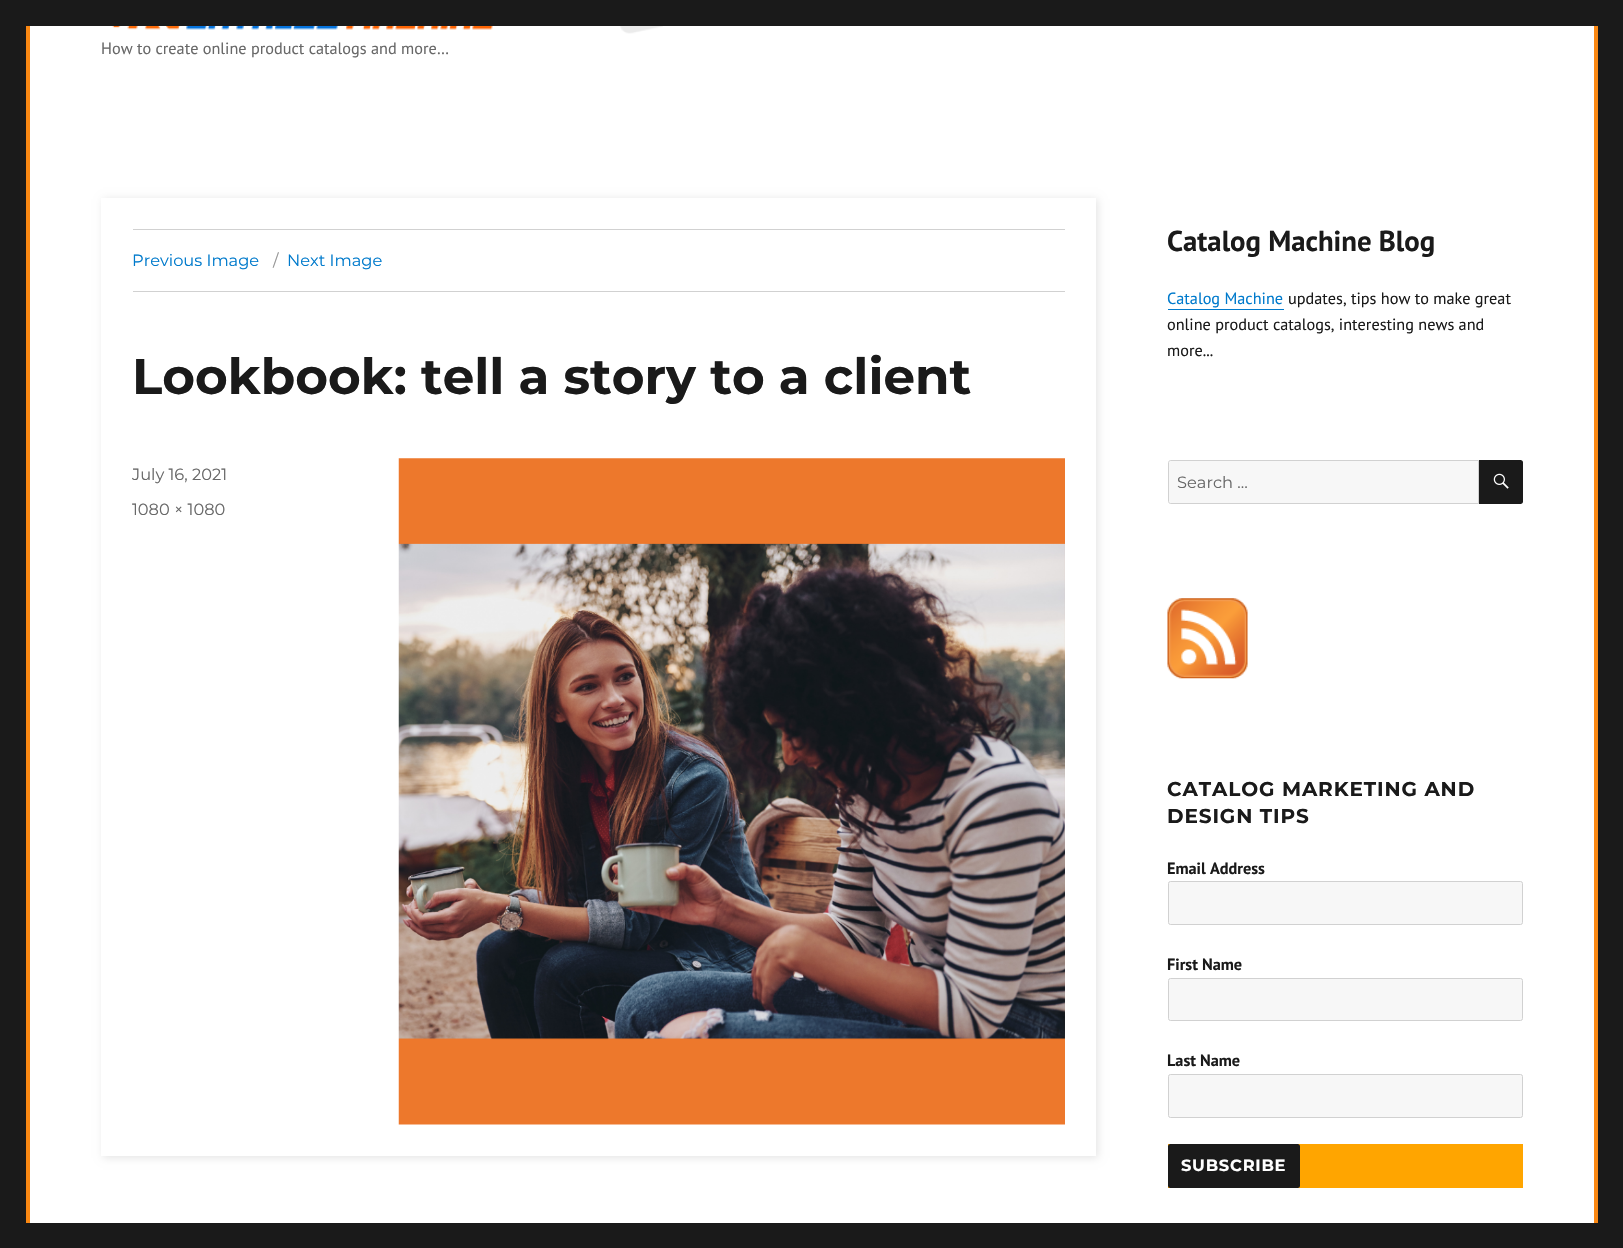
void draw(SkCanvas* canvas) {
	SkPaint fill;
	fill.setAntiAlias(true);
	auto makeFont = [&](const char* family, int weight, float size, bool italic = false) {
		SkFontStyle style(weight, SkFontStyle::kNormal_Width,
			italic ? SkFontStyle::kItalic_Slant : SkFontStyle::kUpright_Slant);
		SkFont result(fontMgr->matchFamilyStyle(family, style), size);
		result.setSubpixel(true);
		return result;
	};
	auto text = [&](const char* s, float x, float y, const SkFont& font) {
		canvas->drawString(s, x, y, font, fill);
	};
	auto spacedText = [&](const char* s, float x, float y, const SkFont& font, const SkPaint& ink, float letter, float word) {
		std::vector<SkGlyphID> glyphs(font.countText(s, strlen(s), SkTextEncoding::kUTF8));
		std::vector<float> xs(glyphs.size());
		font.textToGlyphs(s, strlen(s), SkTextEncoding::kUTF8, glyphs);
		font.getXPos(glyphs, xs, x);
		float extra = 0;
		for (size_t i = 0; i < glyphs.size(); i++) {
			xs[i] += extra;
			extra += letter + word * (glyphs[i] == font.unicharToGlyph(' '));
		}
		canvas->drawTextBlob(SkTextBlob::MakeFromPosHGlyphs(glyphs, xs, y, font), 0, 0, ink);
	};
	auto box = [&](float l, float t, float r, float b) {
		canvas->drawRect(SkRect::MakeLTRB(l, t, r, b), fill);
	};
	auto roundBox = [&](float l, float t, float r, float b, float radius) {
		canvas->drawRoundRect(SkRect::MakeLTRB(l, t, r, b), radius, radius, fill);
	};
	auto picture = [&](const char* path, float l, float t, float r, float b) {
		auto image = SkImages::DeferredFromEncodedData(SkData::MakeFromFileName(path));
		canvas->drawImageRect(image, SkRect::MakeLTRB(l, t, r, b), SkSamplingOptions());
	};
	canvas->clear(0xFF1A1A1A);
	fill.setColor(0xFFFFFFFF);
	box(30, 26, 1594, 1223);
	fill.setStyle(SkPaint::kStroke_Style);
	fill.setStrokeWidth(4);
	fill.setColor(0xFFFB8812);
	canvas->drawRect(SkRect::MakeLTRB(28, -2, 1596, 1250), fill);
	fill.setStyle(SkPaint::kFill_Style);
	fill.setColor(0xFF1A1A1A);
	box(26, 0, 1598, 26);
	picture("image0.png", 620, 26, 663, 34);
	picture("image1.png", 112, 26, 493, 30);
	canvas->save();
	canvas->clipPath(SkPathBuilder(SkPathFillType::kEvenOdd).moveTo(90, 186).lineTo(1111, 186).lineTo(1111, 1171).lineTo(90, 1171).close().moveTo(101, 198).lineTo(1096, 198).lineTo(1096, 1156).lineTo(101, 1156).close().detach(), true);
	fill.setColor(0x1A000000);
	fill.setMaskFilter(SkMaskFilter::MakeBlur(kNormal_SkBlurStyle, 4));
	canvas->drawRect(SkRect::MakeLTRB(103, 199, 1098, 1158), fill);
	fill.setMaskFilter(nullptr);
	canvas->restore();
	fill.setColor(0xFFD1D1D1);
	box(133, 229, 1065, 230);
	box(133, 291, 1065, 292);
	picture("image2.png", 398, 458, 1065, 1125);
	fill.setColor(0xFF007ACC);
	canvas->drawPath(SkPathBuilder().moveTo(1168, 309).lineTo(1168, 310).lineTo(1284, 310).lineTo(1284, 289).lineTo(1284, 309).close().detach(), fill);
	fill.setColor(0xFFF7F7F7);
	canvas->drawPath(SkPathBuilder().moveTo(1170.5f, 460.5f).lineTo(1478.5f, 460.5f).lineTo(1478.5f, 503.5f).lineTo(1170.5f, 503.5f).cubicTo(1169.5f, 503.5f, 1168.5f, 502.5f, 1168.5f, 501.5f).lineTo(1168.5f, 462.5f).cubicTo(1168.5f, 461.5f, 1169.5f, 460.5f, 1170.5f, 460.5f).close().detach(), fill);
	fill.setStyle(SkPaint::kStroke_Style);
	fill.setStrokeWidth(1);
	fill.setColor(0xFFD1D1D1);
	canvas->drawPath(SkPathBuilder().moveTo(1170.5f, 460.5f).lineTo(1478.5f, 460.5f).lineTo(1478.5f, 503.5f).lineTo(1170.5f, 503.5f).cubicTo(1169.5f, 503.5f, 1168.5f, 502.5f, 1168.5f, 501.5f).lineTo(1168.5f, 462.5f).cubicTo(1168.5f, 461.5f, 1169.5f, 460.5f, 1170.5f, 460.5f).close().detach(), fill);
	fill.setStyle(SkPaint::kFill_Style);
	fill.setColor(0xFF1A1A1A);
	canvas->drawPath(SkPathBuilder().moveTo(1479, 460).lineTo(1520.5f, 460).cubicTo(1522, 460, 1523, 461, 1523, 462.5f).lineTo(1523, 501.5f).cubicTo(1523, 503, 1522, 504, 1520.5f, 504).lineTo(1479, 504).close().detach(), fill);
	picture("image3.png", 1493, 473, 1509, 489);
	picture("image4.png", 1167, 598, 1248, 679);
	fill.setColor(0xFFF7F7F7);
	canvas->drawRoundRect(SkRect::MakeLTRB(1168.5f, 881.5f, 1522.5f, 924.5f), 2, 2, fill);
	fill.setStyle(SkPaint::kStroke_Style);
	fill.setColor(0xFFD1D1D1);
	canvas->drawRoundRect(SkRect::MakeLTRB(1168.5f, 881.5f, 1522.5f, 924.5f), 2, 2, fill);
	fill.setStyle(SkPaint::kFill_Style);
	fill.setColor(0xFFF7F7F7);
	canvas->drawRoundRect(SkRect::MakeLTRB(1168.5f, 978.5f, 1522.5f, 1020.5f), 2, 2, fill);
	fill.setStyle(SkPaint::kStroke_Style);
	fill.setColor(0xFFD1D1D1);
	canvas->drawRoundRect(SkRect::MakeLTRB(1168.5f, 978.5f, 1522.5f, 1020.5f), 2, 2, fill);
	fill.setStyle(SkPaint::kFill_Style);
	fill.setColor(0xFFF7F7F7);
	canvas->drawRoundRect(SkRect::MakeLTRB(1168.5f, 1074.5f, 1522.5f, 1117.5f), 2, 2, fill);
	fill.setStyle(SkPaint::kStroke_Style);
	fill.setColor(0xFFD1D1D1);
	canvas->drawRoundRect(SkRect::MakeLTRB(1168.5f, 1074.5f, 1522.5f, 1117.5f), 2, 2, fill);
	fill.setStyle(SkPaint::kFill_Style);
	fill.setColor(0xFFFFA500);
	box(1168, 1144, 1523, 1188);
	fill.setColor(0xFF1A1A1A);
	roundBox(1168, 1144, 1300, 1188, 2.5f);
	box(26, 1223, 1598, 1248);
	auto font1 = makeFont("PT Sans", 400, 16.25f);
	fill.setColor(0xFF686868);
	text("How to create online product catalogs and more…", 101, 54, font1);
	auto font2 = makeFont("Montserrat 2", 100, 16.25f);
	fill.setColor(0xFF007ACC);
	text("Previous Image", 132, 266, font2);
	fill.setColor(0xFF959595);
	text("/", 273, 266, font2);
	fill.setColor(0xFF007ACC);
	text("Next Image", 287, 266, font2);
	auto font3 = makeFont("Montserrat", 100, 50);
	fill.setColor(0xFF1A1A1A);
	text("Lookbook: tell a story to a client", 132, 394, font3);
	fill.setColor(0xFF686868);
	text("July 16, 2021", 132, 480, font2);
	text("1080 × 1080", 132, 515, font2);
	auto font4 = makeFont("PT Sans", 700, 28.75f);
	fill.setColor(0xFF1A1A1A);
	text("Catalog Machine Blog", 1167, 251, font4);
	fill.setColor(0xFF007ACC);
	text("Catalog Machine", 1167, 304, font1);
	fill.setColor(0xFF1A1A1A);
	text("updates, tips how to make great", 1288, 304, font1);
	text("online product catalogs, interesting news and", 1167, 330, font1);
	text("more...", 1167, 356, font1);
	fill.setColor(0xFF686868);
	text("Search …", 1177, 488, font2);
	auto font5 = makeFont("Montserrat", 100, 20);
	fill.setColor(0xFF1A1A1A);
	spacedText("CATALOG MARKETING AND", 1167, 796, font5, fill, 0.9f, 0);
	spacedText("DESIGN TIPS", 1167, 823, font5, fill, 0.9f, 0);
	auto font6 = makeFont("PT Sans", 700, 16.25f);
	text("Email Address", 1167, 874, font6);
	text("First Name", 1167, 970, font6);
	text("Last Name", 1167, 1066, font6);
	auto font7 = makeFont("Montserrat", 100, 16.25f);
	fill.setColor(0xFFFFFFFF);
	spacedText("SUBSCRIBE", 1181, 1171, font7, fill, 0.75f, 0);
}
